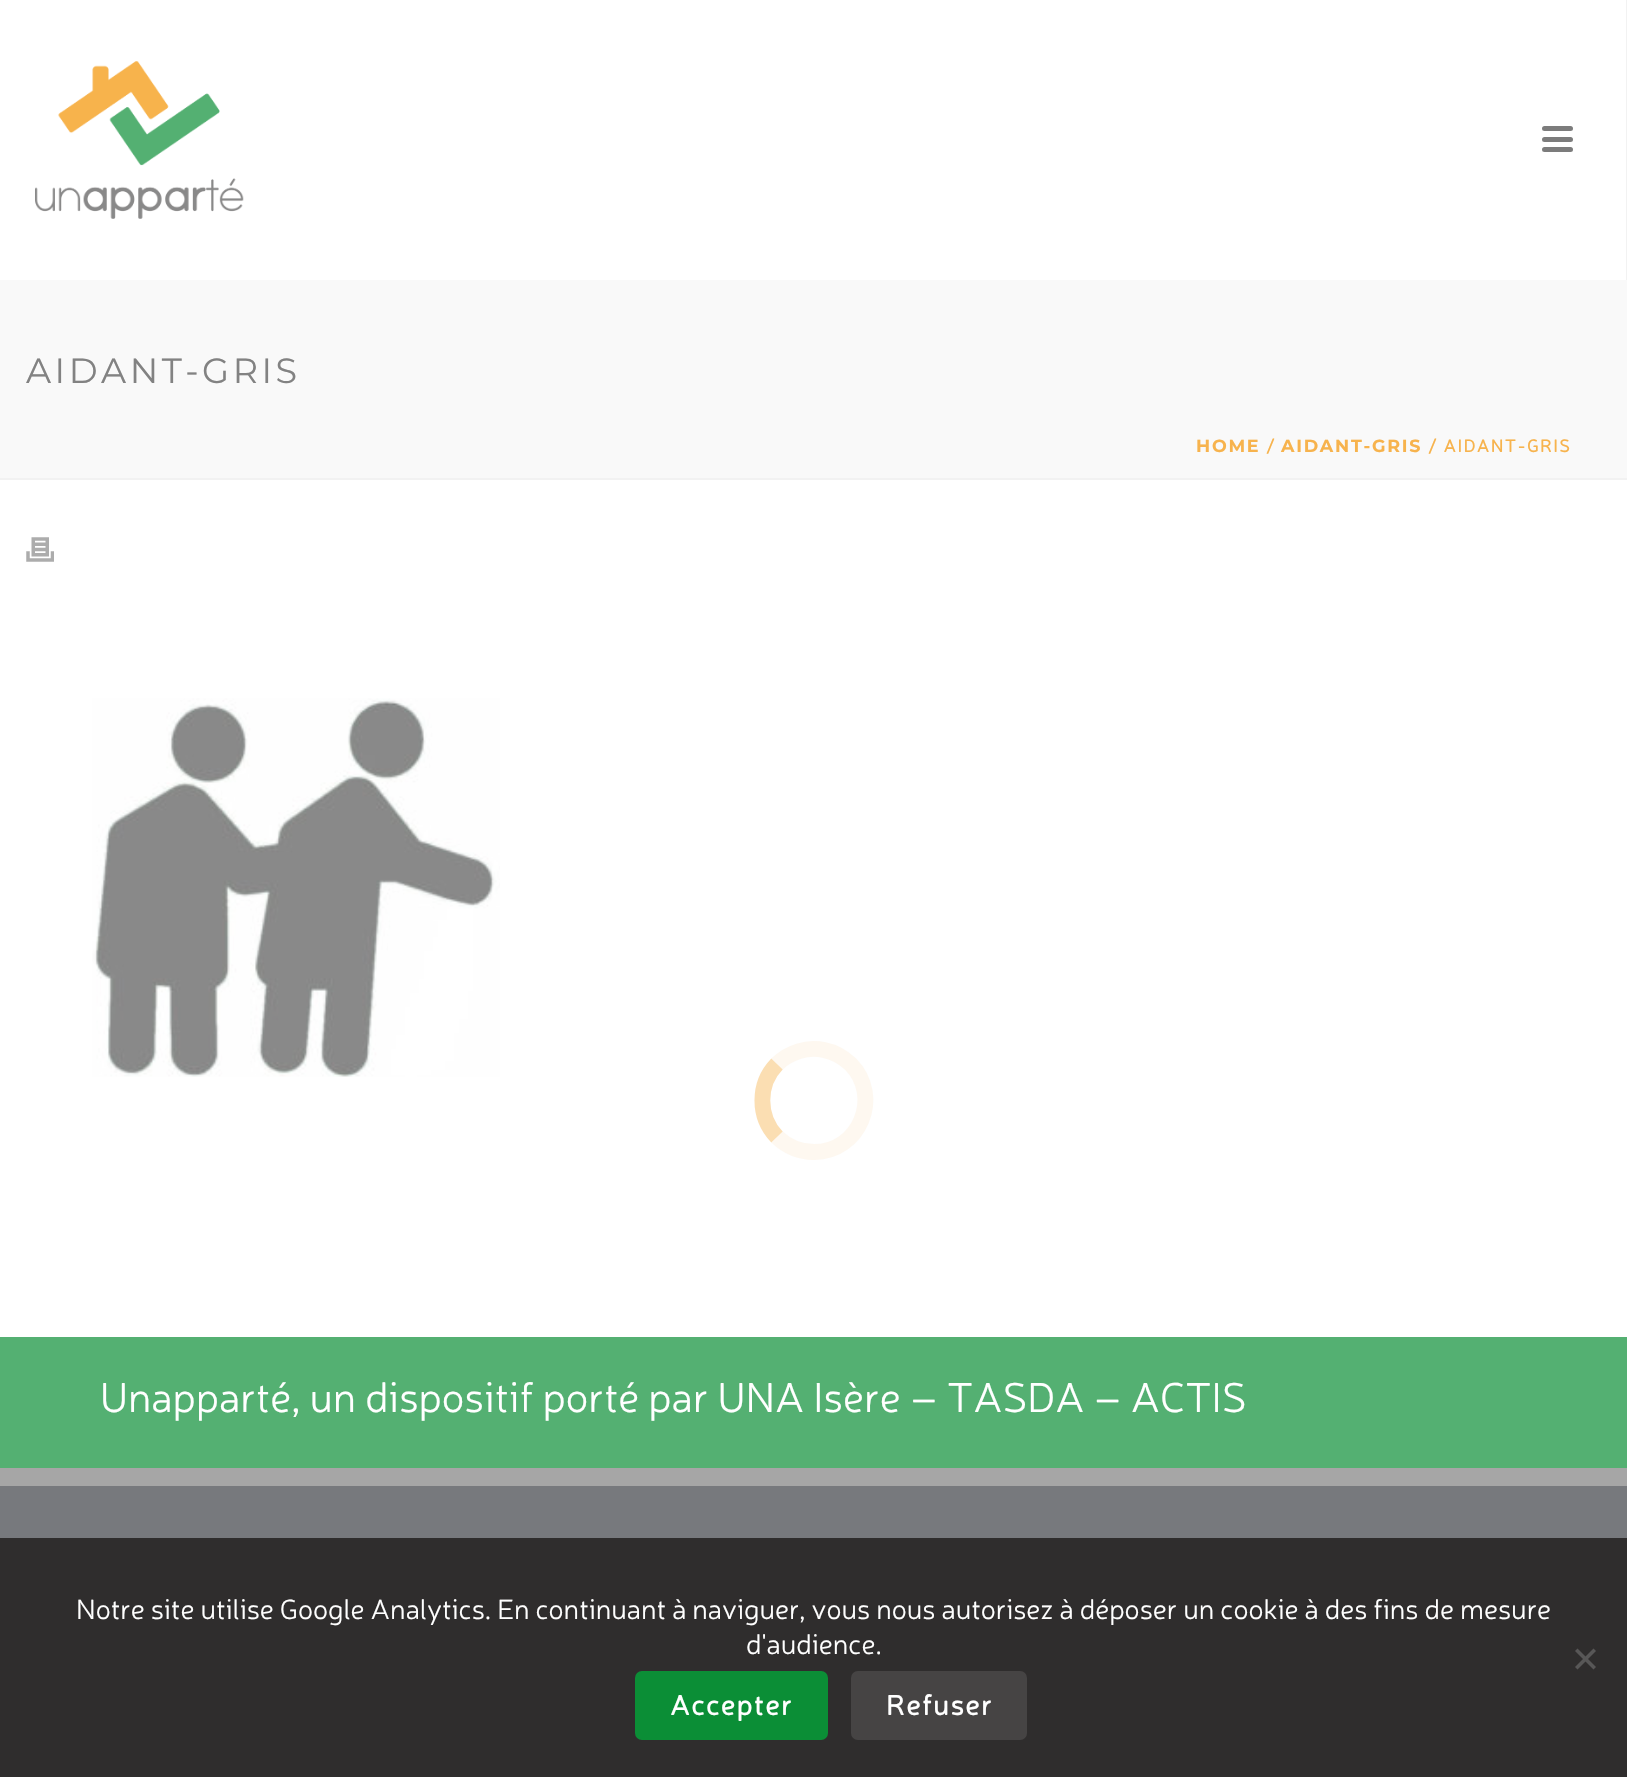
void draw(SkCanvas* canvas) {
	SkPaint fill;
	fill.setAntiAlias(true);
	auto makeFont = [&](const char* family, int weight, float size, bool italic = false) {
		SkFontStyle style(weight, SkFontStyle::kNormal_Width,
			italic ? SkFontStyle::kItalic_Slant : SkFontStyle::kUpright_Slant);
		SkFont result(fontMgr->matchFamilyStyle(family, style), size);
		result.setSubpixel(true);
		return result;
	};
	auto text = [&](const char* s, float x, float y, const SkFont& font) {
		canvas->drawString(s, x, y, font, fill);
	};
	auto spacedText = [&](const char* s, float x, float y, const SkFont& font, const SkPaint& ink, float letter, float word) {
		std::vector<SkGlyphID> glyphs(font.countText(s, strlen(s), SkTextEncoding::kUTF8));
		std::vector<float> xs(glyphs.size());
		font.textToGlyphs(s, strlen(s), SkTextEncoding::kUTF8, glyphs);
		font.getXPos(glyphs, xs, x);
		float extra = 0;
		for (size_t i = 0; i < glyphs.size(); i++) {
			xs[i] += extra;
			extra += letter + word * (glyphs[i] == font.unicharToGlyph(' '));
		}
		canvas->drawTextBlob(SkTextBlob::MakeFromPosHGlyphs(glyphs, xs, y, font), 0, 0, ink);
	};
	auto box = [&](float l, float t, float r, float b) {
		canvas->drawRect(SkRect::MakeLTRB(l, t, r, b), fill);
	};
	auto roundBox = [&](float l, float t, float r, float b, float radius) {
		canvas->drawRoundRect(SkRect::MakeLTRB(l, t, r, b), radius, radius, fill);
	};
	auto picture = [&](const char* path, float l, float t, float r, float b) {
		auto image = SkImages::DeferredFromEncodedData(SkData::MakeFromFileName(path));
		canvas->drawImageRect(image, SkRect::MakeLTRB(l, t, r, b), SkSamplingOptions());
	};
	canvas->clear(0xFFFFFFFF);
	fill.setColor(0xFFF9F9F9);
	box(0, 280, 1627, 478);
	fill.setColor(0xFFF2F2F2);
	box(0, 478, 1627, 480);
	box(1626, 0, 1627, 280);
	picture("image0.png", 35, 61, 244, 219);
	fill.setColor(0xFF7C7C7C);
	roundBox(1542, 126, 1573, 131, 2.5f);
	roundBox(1542, 137, 1573, 142, 2.5f);
	roundBox(1542, 147, 1573, 152, 2.5f);
	picture("image1.png", 26, 537, 54, 562);
	picture("image2.png", 92, 698, 500, 1077);
	fill.setColor(0xFF54B072);
	box(0, 1337, 1627, 1468);
	fill.setColor(0xFF77797D);
	box(0, 1486, 1627, 1538);
	fill.setColor(0xFFA6A6A6);
	box(0, 1468, 1627, 1486);
	fill.setStyle(SkPaint::kStroke_Style);
	fill.setStrokeWidth(15.8f);
	fill.setColor(0xFFFEF8F0);
	canvas->drawPath(SkPathBuilder().moveTo(777, 1064).cubicTo(789.5f, 1052, 807, 1046.5f, 824, 1050).cubicTo(834, 1052, 843, 1057, 850.5f, 1064).cubicTo(882.5f, 1096.5f, 859.5f, 1152, 814, 1152).cubicTo(800, 1152, 787, 1146.5f, 777, 1137).detach(), fill);
	fill.setColor(0xFFFBDEB2);
	canvas->drawPath(SkPathBuilder().moveTo(777, 1137).cubicTo(757.5f, 1117, 757.5f, 1084, 777, 1064).detach(), fill);
	fill.setStyle(SkPaint::kFill_Style);
	fill.setColor(0xFF2F2D2D);
	box(0, 1538, 1627, 1777);
	fill.setColor(0xFF585757);
	canvas->drawPath(SkPathBuilder().moveTo(1593.5f, 1648.5f).lineTo(1596, 1651).lineTo(1577.5f, 1669.5f).lineTo(1575, 1667).close().detach(), fill);
	canvas->drawPath(SkPathBuilder().moveTo(1575, 1651).lineTo(1577.5f, 1648.5f).lineTo(1596, 1667).lineTo(1593.5f, 1669.5f).close().detach(), fill);
	fill.setColor(0xFF0B8E36);
	roundBox(635, 1671, 828, 1740, 7);
	fill.setColor(0xFF464444);
	roundBox(851, 1671, 1027, 1740, 7);
	auto font1 = makeFont("Montserrat", 400, 35);
	fill.setColor(0xFF828282);
	spacedText("AIDANT-GRIS", 26, 383, font1, fill, 3.5f, 0);
	auto font2 = makeFont("Montserrat", 700, 17.5f);
	fill.setColor(0xFFF7B34D);
	spacedText("HOME", 1196, 452, font2, fill, 1.75f, 0);
	auto font3 = makeFont("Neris", 700, 17.5f);
	spacedText("/", 1266, 452, font3, fill, 1.75f, 0);
	spacedText("AIDANT-GRIS", 1281, 452, font2, fill, 1.75f, 0);
	spacedText("/ AIDANT-GRIS", 1428, 452, font3, fill, 1.75f, 0);
	auto font4 = makeFont("Neris", 300, 42);
	fill.setColor(0xFFFFFFFF);
	text("Unapparté, un dispositif porté par UNA Isère – TASDA – ACTIS", 100, 1412, font4);
	auto font5 = makeFont("Neris", 300, 28);
	text("Notre site utilise Google Analytics. En continuant à naviguer, vous nous autorisez à déposer un cookie à des fins de mesure", 76, 1619, font5);
	text("d'audience.", 746, 1654, font5);
	auto font6 = makeFont("Neris", 700, 28);
	spacedText("Accepter", 670, 1715, font6, fill, 1.75f, 0);
	spacedText("Refuser", 886, 1715, font6, fill, 1.75f, 0);
}
